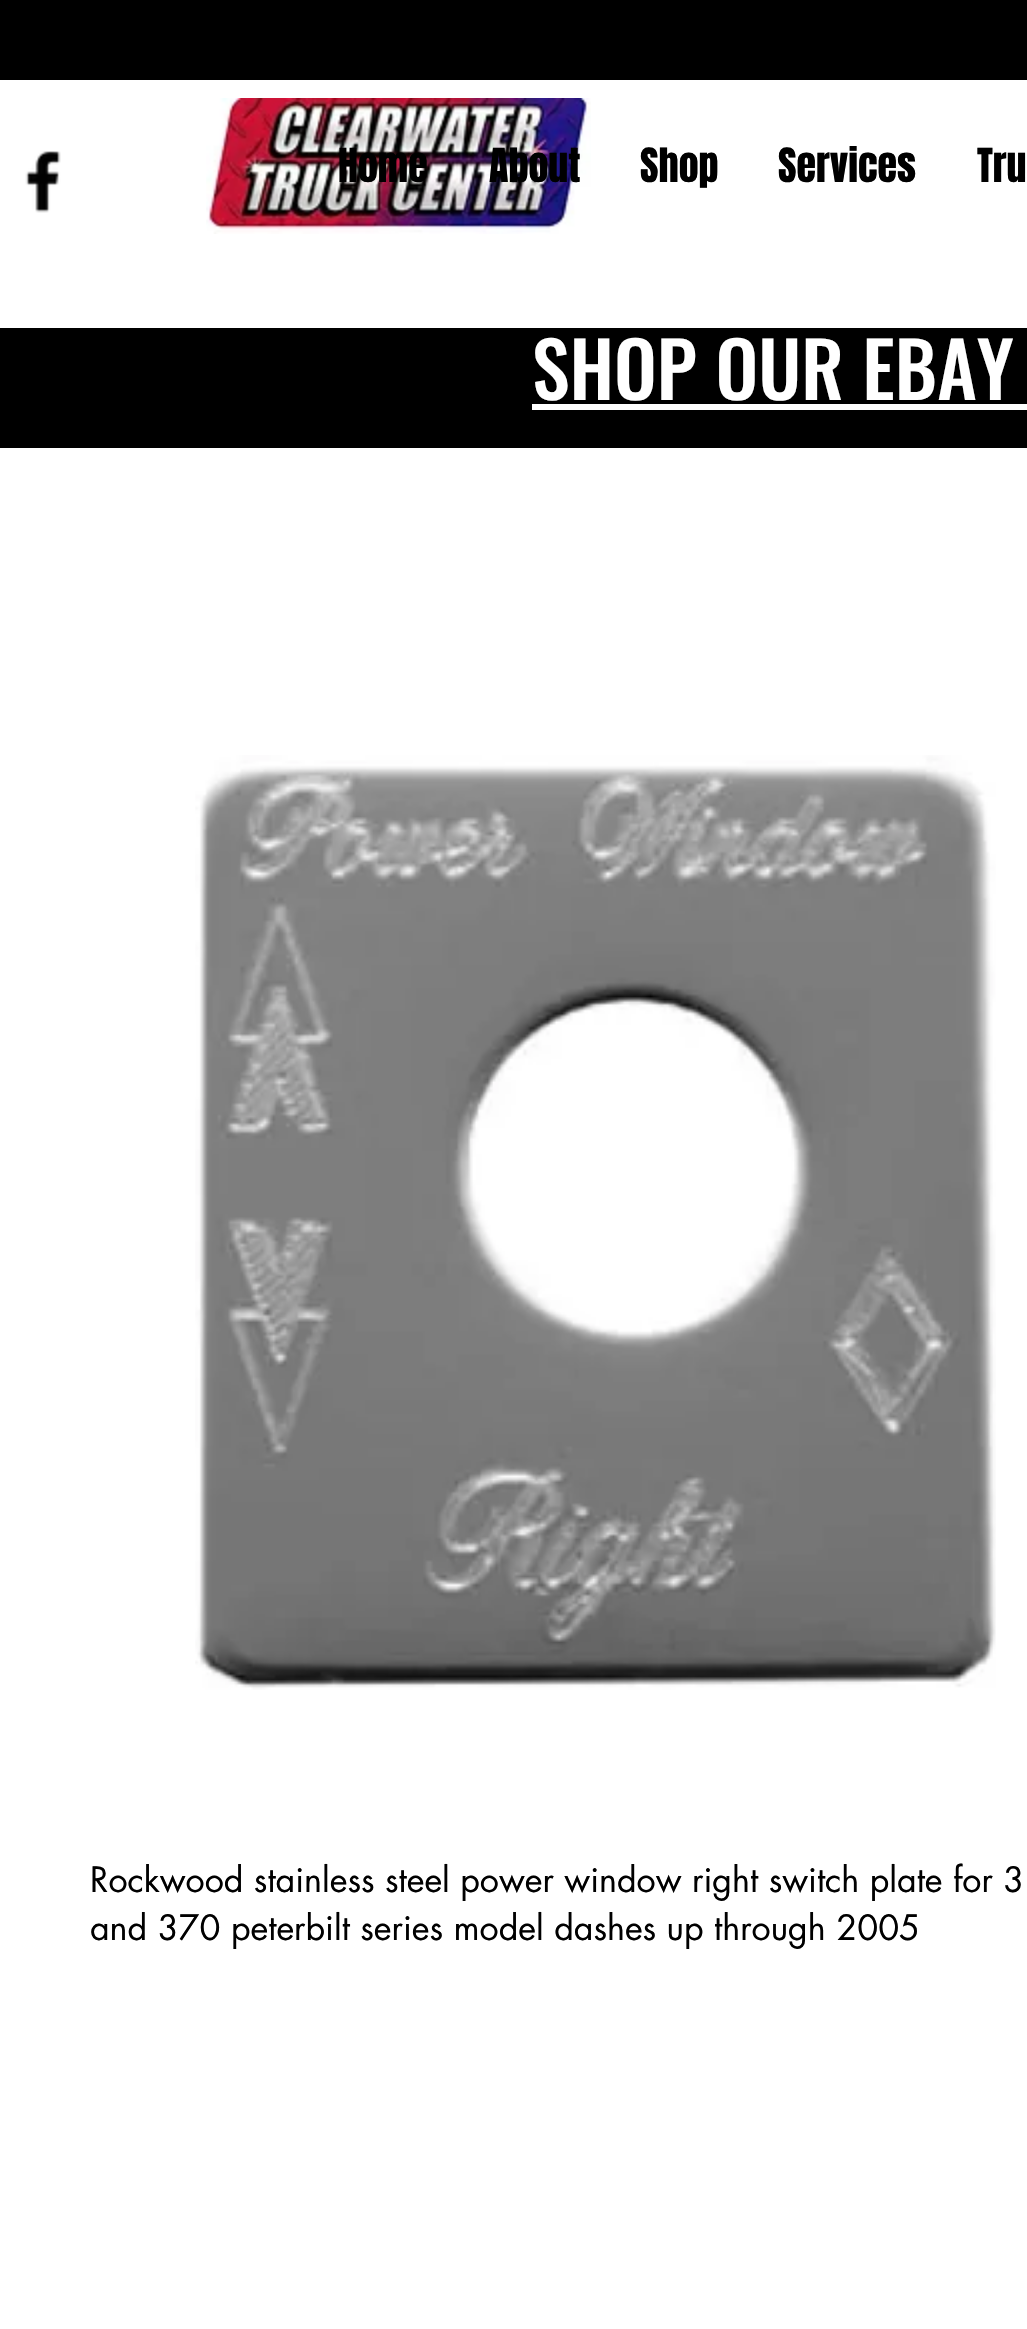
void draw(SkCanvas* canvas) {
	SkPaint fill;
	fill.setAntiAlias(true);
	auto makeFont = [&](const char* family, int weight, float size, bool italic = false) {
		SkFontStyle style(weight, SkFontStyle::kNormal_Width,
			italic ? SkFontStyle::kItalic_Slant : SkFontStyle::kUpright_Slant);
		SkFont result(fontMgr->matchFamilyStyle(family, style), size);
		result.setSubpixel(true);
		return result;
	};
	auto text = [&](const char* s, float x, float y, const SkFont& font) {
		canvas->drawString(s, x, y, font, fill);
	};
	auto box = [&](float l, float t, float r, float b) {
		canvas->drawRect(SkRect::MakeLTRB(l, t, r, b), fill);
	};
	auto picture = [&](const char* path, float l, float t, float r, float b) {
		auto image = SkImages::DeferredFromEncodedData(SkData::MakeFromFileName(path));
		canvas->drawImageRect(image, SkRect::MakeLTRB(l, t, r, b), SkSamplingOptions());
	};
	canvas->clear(0xFFFFFFFF);
	fill.setColor(0xFF000000);
	box(0, 0, 1027, 448);
	fill.setColor(0xFFFFFFFF);
	box(0, 80, 1027, 328);
	picture("image0.png", 25, 151, 61, 213);
	picture("image1.png", 206, 98, 591, 234);
	box(532, 404, 1027, 410);
	picture("image2.png", 195, 755, 996, 1690);
	auto font1 = makeFont("Anton", 400, 40);
	fill.setColor(0xFF000000);
	text("Home", 338, 182, font1);
	text("About", 489, 182, font1);
	text("Shop", 640, 182, font1);
	text("Services", 778, 182, font1);
	text("Tru", 977, 182, font1);
	auto font2 = makeFont("Oswald", 500, 76);
	fill.setColor(0xFFFFFFFF);
	text("SHOP OUR EBAY", 532, 400, font2);
	auto font3 = makeFont("futura", 400, 34);
	fill.setColor(0xFF000000);
	text("Rockwood stainless steel power window right switch plate for 3", 90, 1892, font3);
	text("and 370 peterbilt series model dashes up through 2005", 90, 1940, font3);
}
